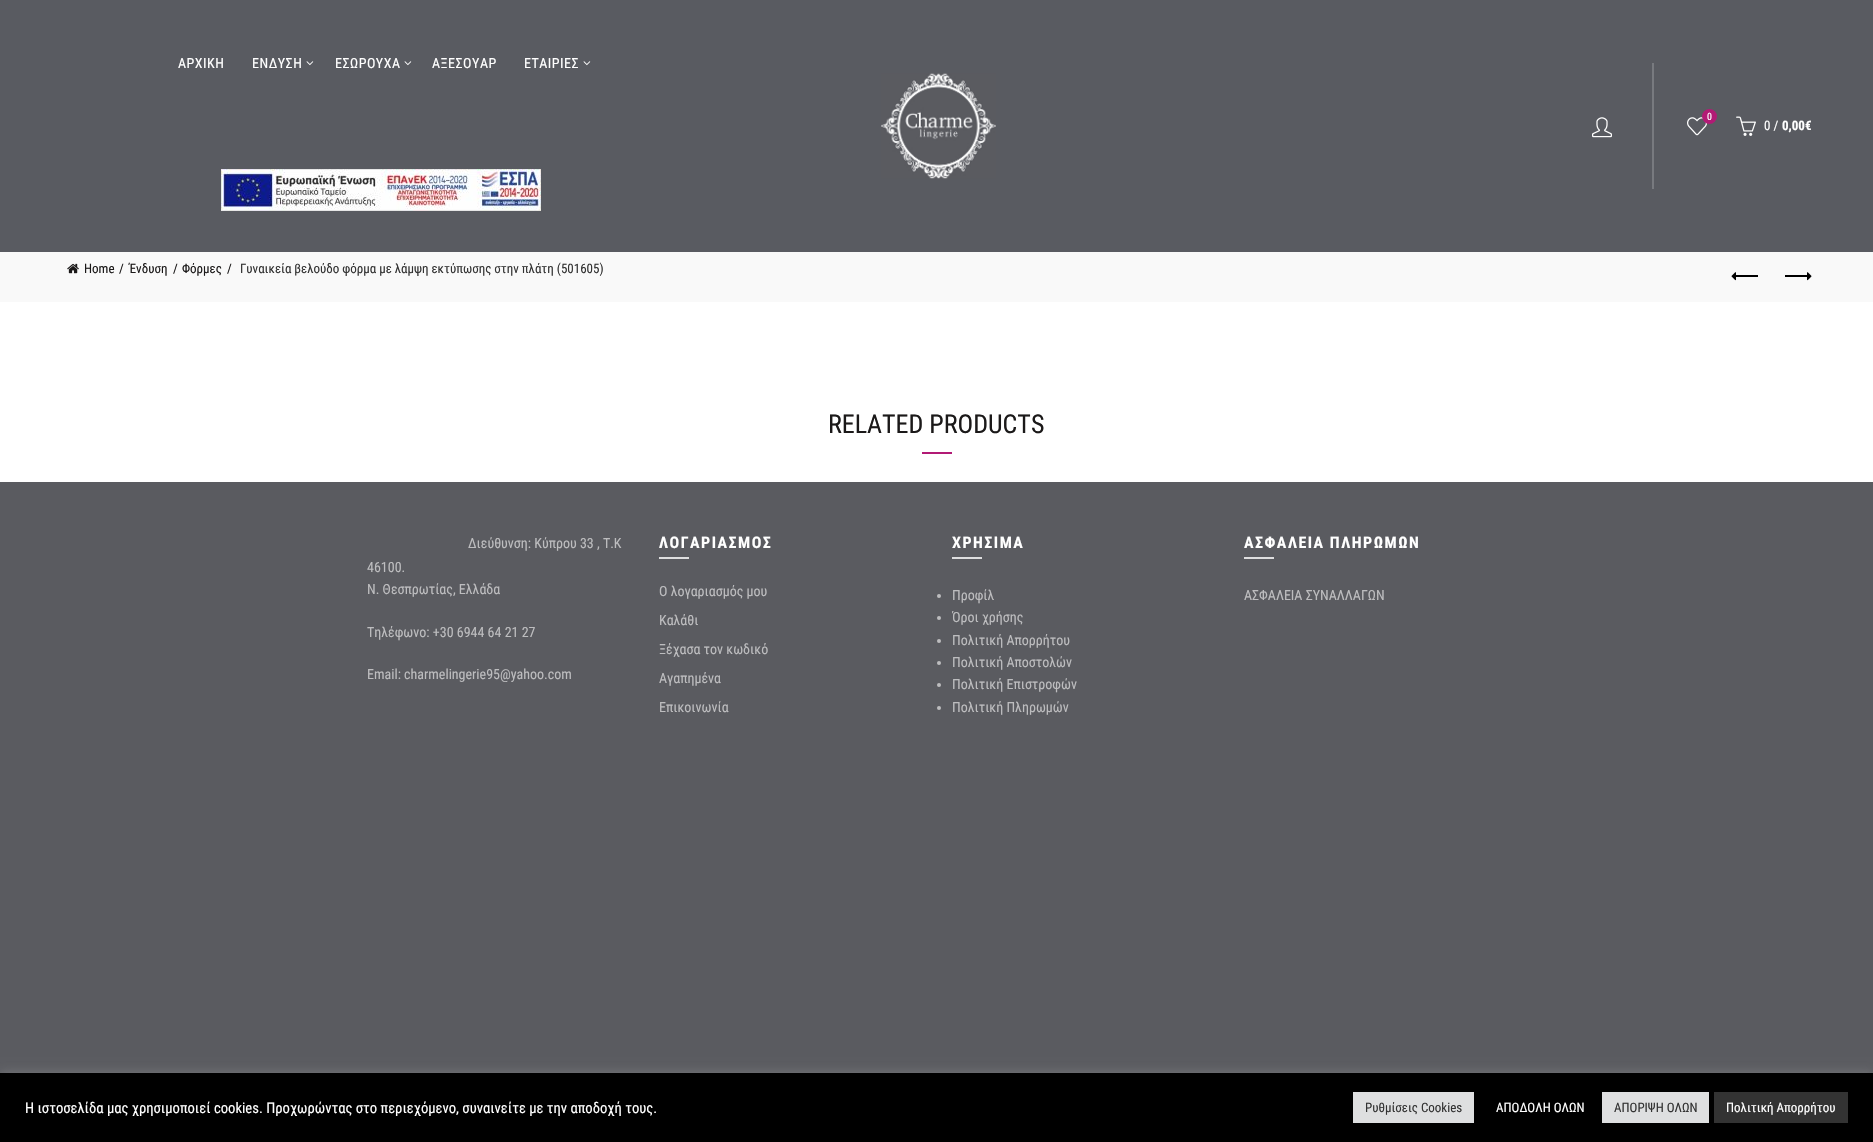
void draw(SkCanvas* canvas) {
	SkPaint fill;
	fill.setAntiAlias(true);
	auto makeFont = [&](const char* family, int weight, float size, bool italic = false) {
		SkFontStyle style(weight, SkFontStyle::kNormal_Width,
			italic ? SkFontStyle::kItalic_Slant : SkFontStyle::kUpright_Slant);
		SkFont result(fontMgr->matchFamilyStyle(family, style), size);
		result.setSubpixel(true);
		return result;
	};
	auto text = [&](const char* s, float x, float y, const SkFont& font) {
		canvas->drawString(s, x, y, font, fill);
	};
	auto spacedText = [&](const char* s, float x, float y, const SkFont& font, const SkPaint& ink, float letter, float word) {
		std::vector<SkGlyphID> glyphs(font.countText(s, strlen(s), SkTextEncoding::kUTF8));
		std::vector<float> xs(glyphs.size());
		font.textToGlyphs(s, strlen(s), SkTextEncoding::kUTF8, glyphs);
		font.getXPos(glyphs, xs, x);
		float extra = 0;
		for (size_t i = 0; i < glyphs.size(); i++) {
			xs[i] += extra;
			extra += letter + word * (glyphs[i] == font.unicharToGlyph(' '));
		}
		canvas->drawTextBlob(SkTextBlob::MakeFromPosHGlyphs(glyphs, xs, y, font), 0, 0, ink);
	};
	auto box = [&](float l, float t, float r, float b) {
		canvas->drawRect(SkRect::MakeLTRB(l, t, r, b), fill);
	};
	auto picture = [&](const char* path, float l, float t, float r, float b) {
		auto image = SkImages::DeferredFromEncodedData(SkData::MakeFromFileName(path));
		canvas->drawImageRect(image, SkRect::MakeLTRB(l, t, r, b), SkSamplingOptions());
	};
	canvas->clear(0xFFFFFFFF);
	fill.setColor(0xFF595B61);
	box(0, 0, 1873, 252);
	picture("image0.png", 306, 61, 314, 66);
	picture("image0.png", 404, 61, 412, 66);
	picture("image0.png", 583, 61, 591, 66);
	picture("image1.png", 221, 169, 541, 211);
	picture("image2.png", 881, 73, 996, 179);
	fill.setColor(0xFF787A7F);
	box(1652, 63, 1654, 189);
	picture("image3.png", 1592, 117, 1612, 138);
	picture("image4.png", 1687, 117, 1707, 136);
	fill.setColor(0xFFB21A75);
	canvas->drawCircle(1709.5f, 116.5f, 7.5f, fill);
	picture("image5.png", 1736, 116, 1756, 136);
	fill.setColor(0xFFF9F9F9);
	box(0, 252, 1873, 302);
	picture("image6.png", 67, 263, 79, 274);
	fill.setColor(0xFF000000);
	box(1735, 275, 1758, 277);
	picture("image7.png", 1731, 272, 1736, 281);
	box(1785, 275, 1808, 277);
	picture("image8.png", 1807, 272, 1812, 281);
	fill.setColor(0xFFB21A75);
	box(922, 452, 952, 454);
	fill.setColor(0xFF5A5B60);
	box(0, 482, 1873, 1073);
	fill.setColor(0xFFDEDEDF);
	box(659, 557, 689, 559);
	box(952, 557, 982, 559);
	fill.setColor(0xFFBDBDBF);
	canvas->drawCircle(939, 596, 2, fill);
	canvas->drawCircle(939, 618, 2, fill);
	canvas->drawCircle(939, 641, 2, fill);
	canvas->drawCircle(939, 663, 2, fill);
	canvas->drawCircle(939, 685, 2, fill);
	canvas->drawCircle(939, 708, 2, fill);
	fill.setColor(0xFFDEDEDF);
	box(1244, 557, 1274, 559);
	fill.setColor(0x4DACABAB);
	fill.setMaskFilter(SkMaskFilter::MakeBlur(kNormal_SkBlurStyle, 5));
	canvas->drawRect(SkRect::MakeLTRB(0, 1072, 1873, 1141), fill);
	fill.setMaskFilter(nullptr);
	fill.setColor(0xFF000000);
	box(0, 1073, 1873, 1142);
	fill.setColor(0xFFDEDFE0);
	box(1353, 1092, 1474, 1123);
	box(1602, 1092, 1709, 1123);
	fill.setColor(0xFF333333);
	box(1714, 1092, 1848, 1123);
	auto font1 = makeFont("Roboto Condensed", 400, 14);
	fill.setColor(0xFFFFFFFF);
	spacedText("ΑΡΧΙΚΗ", 178, 68, font1, fill, 0.5f, 0);
	spacedText("ΕΝΔΥΣΗ", 252, 68, font1, fill, 0.5f, 0);
	spacedText("ΕΣΩΡΟΥΧΑ", 335, 68, font1, fill, 0.5f, 0);
	spacedText("ΑΞΕΣΟΥΑΡ", 432, 68, font1, fill, 0.5f, 0);
	spacedText("ΕΤΑΙΡΙΕΣ", 524, 68, font1, fill, 0.5f, 0);
	auto font2 = makeFont("Roboto Condensed", 400, 10);
	text("0", 1707, 120, font2);
	auto font3 = makeFont("Roboto Condensed", 400, 13);
	text("0 /", 1764, 130, font3);
	auto font4 = makeFont("Roboto Condensed", 700, 13);
	text("0,00€", 1782, 130, font4);
	fill.setColor(0xFF1B1919);
	text("Home", 84, 273, font3);
	text("/", 119, 273, font3);
	text("Ένδυση", 129, 273, font3);
	text("/", 173, 273, font3);
	text("Φόρμες", 182, 273, font3);
	text("/", 227, 273, font3);
	fill.setColor(0xFF333333);
	text("Γυναικεία βελούδο φόρμα με λάμψη εκτύπωσης στην πλάτη (501605)", 240, 273, font3);
	auto font5 = makeFont("Roboto Condensed", 400, 26);
	fill.setColor(0xFF1B1919);
	text("RELATED PRODUCTS", 828, 433, font5);
	fill.setColor(0xFFBDBDBF);
	text("Διεύθυνση: Κύπρου 33 , Τ.Κ", 468, 548, font1);
	text("46100.", 367, 572, font1);
	text("Ν. Θεσπρωτίας, Ελλάδα", 367, 594, font1);
	text("Τηλέφωνο: +30 6944 64 21 27", 367, 637, font1);
	text("Email: charmelingerie95@yahoo.com", 367, 679, font1);
	auto font6 = makeFont("Roboto Condensed", 700, 16);
	fill.setColor(0xFFFFFFFF);
	spacedText("ΛΟΓΑΡΙΑΣΜΟΣ", 659, 548, font6, fill, 1.5f, 0);
	fill.setColor(0xFFBDBDBF);
	text("Ο λογαριασμός μου", 659, 596, font1);
	text("Καλάθι", 659, 625, font1);
	text("Ξέχασα τον κωδικό", 659, 654, font1);
	text("Αγαπημένα", 659, 683, font1);
	text("Επικοινωνία", 659, 712, font1);
	fill.setColor(0xFFFFFFFF);
	spacedText("ΧΡΗΣΙΜΑ", 952, 548, font6, fill, 1.5f, 0);
	fill.setColor(0xFFBDBDBF);
	text("Προφίλ", 952, 600, font1);
	text("Όροι χρήσης", 952, 622, font1);
	text("Πολιτική Απορρήτου", 952, 645, font1);
	text("Πολιτική Αποστολών", 952, 667, font1);
	text("Πολιτική Επιστροφών", 952, 689, font1);
	text("Πολιτική Πληρωμών", 952, 712, font1);
	fill.setColor(0xFFFFFFFF);
	spacedText("ΑΣΦΑΛΕΙΑ ΠΛΗΡΩΜΩΝ", 1244, 548, font6, fill, 1.5f, 0);
	fill.setColor(0xFFBDBDBF);
	text("ΑΣΦΑΛΕΙΑ ΣΥΝΑΛΛΑΓΩΝ", 1244, 600, font1);
	auto font7 = makeFont("Roboto Condensed", 400, 14.65f);
	fill.setColor(0xFFFFFFFF);
	text("Η ιστοσελίδα μας χρησιμοποιεί cookies. Προχωρώντας στο περιεχόμενο, συναινείτε με την αποδοχή τους.", 25, 1113, font7);
	fill.setColor(0xFF333333);
	text("Ρυθμίσεις Cookies", 1365, 1112, font3);
	fill.setColor(0xFFFFFFFF);
	text("ΑΠΟΔΟΛΗ ΟΛΩΝ", 1496, 1112, font3);
	fill.setColor(0xFF333333);
	text("ΑΠΟΡΙΨΗ ΟΛΩΝ", 1614, 1112, font3);
	fill.setColor(0xFFFFFFFF);
	text("Πολιτική Απορρήτου", 1726, 1112, font3);
}
